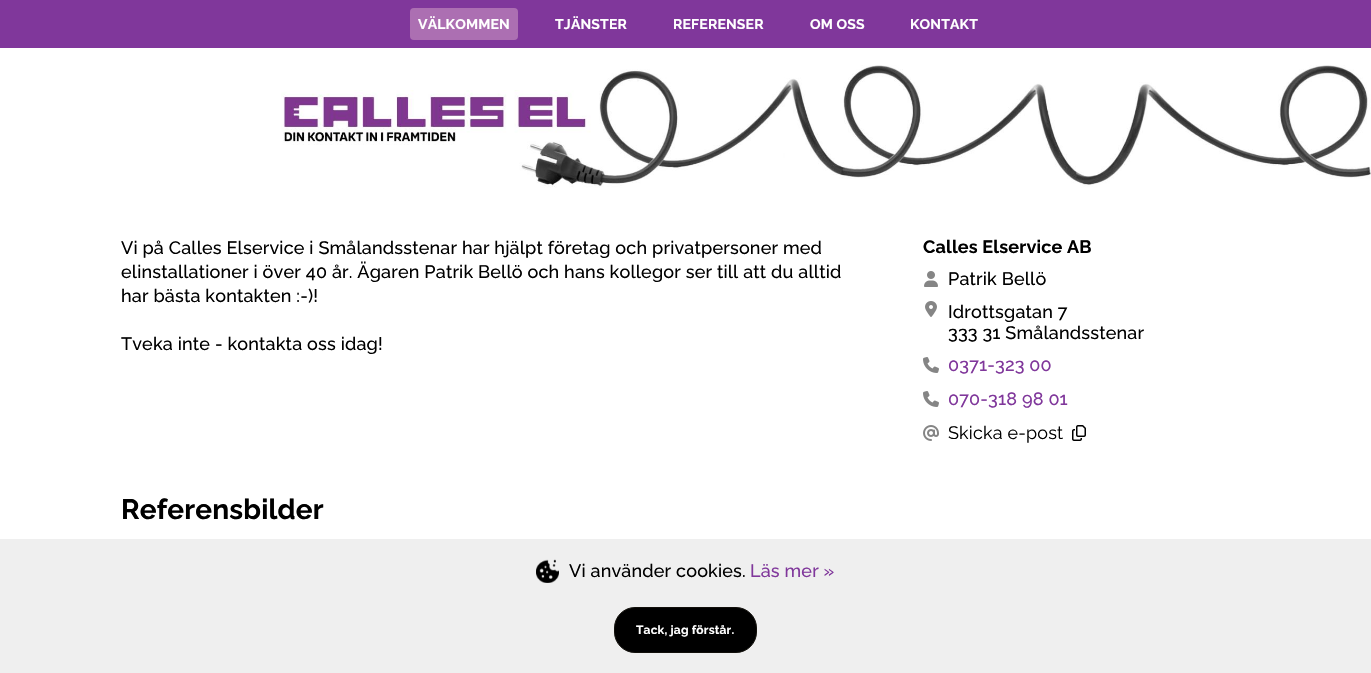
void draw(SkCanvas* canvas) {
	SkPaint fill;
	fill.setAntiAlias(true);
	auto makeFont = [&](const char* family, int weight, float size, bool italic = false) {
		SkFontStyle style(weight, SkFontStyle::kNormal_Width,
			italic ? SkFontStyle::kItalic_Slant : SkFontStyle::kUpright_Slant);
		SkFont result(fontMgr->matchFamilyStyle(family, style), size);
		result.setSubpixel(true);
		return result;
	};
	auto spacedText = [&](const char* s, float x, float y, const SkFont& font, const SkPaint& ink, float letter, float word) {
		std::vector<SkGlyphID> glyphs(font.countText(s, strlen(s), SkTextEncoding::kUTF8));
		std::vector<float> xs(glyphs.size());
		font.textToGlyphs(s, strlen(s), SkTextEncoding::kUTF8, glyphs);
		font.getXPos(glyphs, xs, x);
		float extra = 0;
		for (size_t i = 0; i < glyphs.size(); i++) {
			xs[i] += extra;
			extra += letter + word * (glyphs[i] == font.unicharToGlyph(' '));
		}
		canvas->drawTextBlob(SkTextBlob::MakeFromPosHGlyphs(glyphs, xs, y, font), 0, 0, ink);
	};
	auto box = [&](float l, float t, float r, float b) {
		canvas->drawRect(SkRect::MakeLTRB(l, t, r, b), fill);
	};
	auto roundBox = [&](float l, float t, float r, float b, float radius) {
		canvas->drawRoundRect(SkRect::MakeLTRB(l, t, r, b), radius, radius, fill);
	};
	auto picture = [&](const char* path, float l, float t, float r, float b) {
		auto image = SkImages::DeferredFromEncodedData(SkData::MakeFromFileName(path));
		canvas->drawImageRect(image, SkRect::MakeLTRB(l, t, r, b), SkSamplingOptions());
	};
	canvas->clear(0xFFFFFFFF);
	fill.setColor(0xFF80379B);
	box(0, 0, 1371, 48);
	fill.setColor(0xFFAC6FB2);
	roundBox(410, 8, 518, 40, 4);
	picture("image0.png", 281, 65, 1371, 188);
	picture("image1.png", 924, 271, 938, 287);
	picture("image2.png", 925, 301, 937, 317);
	picture("image3.png", 923, 357, 939, 373);
	picture("image3.png", 923, 391, 939, 407);
	picture("image4.png", 923, 425, 939, 441);
	picture("image5.png", 1072, 425, 1086, 441);
	fill.setColor(0xFFEFEFEF);
	box(0, 539, 1371, 673);
	picture("image6.png", 536, 559, 559, 583);
	fill.setColor(0xFF000000);
	canvas->drawRoundRect(SkRect::MakeLTRB(614.5f, 607.5f, 756.5f, 652.5f), 20.5f, 20.5f, fill);
	fill.setStyle(SkPaint::kStroke_Style);
	fill.setStrokeWidth(1);
	fill.setColor(0xFF12100B);
	canvas->drawRoundRect(SkRect::MakeLTRB(614.5f, 607.5f, 756.5f, 652.5f), 20.5f, 20.5f, fill);
	auto font1 = makeFont("Raleway", 700, 14);
	fill.setStyle(SkPaint::kFill_Style);
	fill.setColor(0xFFFFFFFF);
	spacedText("VÄLKOMMEN", 418, 29, font1, fill, 0.18f, 0);
	spacedText("TJÄNSTER", 555, 29, font1, fill, 0.18f, 0);
	spacedText("REFERENSER", 673, 29, font1, fill, 0.18f, 0);
	spacedText("OM OSS", 810, 29, font1, fill, 0.18f, 0);
	spacedText("KONTAKT", 910, 29, font1, fill, 0.18f, 0);
	auto font2 = makeFont("Raleway", 500, 18);
	fill.setColor(0xFF000000);
	spacedText("Vi på Calles Elservice i Smålandsstenar har hjälpt företag och privatpersoner med", 121, 254, font2, fill, 0.18f, 0);
	spacedText("elinstallationer i över 40 år. Ägaren Patrik Bellö och hans kollegor ser till att du alltid", 121, 278, font2, fill, 0.18f, 0);
	spacedText("har bästa kontakten :-)!", 121, 302, font2, fill, 0.18f, 0);
	spacedText("Tveka inte - kontakta oss idag!", 121, 350, font2, fill, 0.18f, 0);
	auto font3 = makeFont("Raleway", 700, 18);
	spacedText("Calles Elservice AB", 923, 253, font3, fill, 0.18f, 0);
	spacedText("Patrik Bellö", 948, 285, font2, fill, 0.18f, 0);
	spacedText("Idrottsgatan 7", 948, 318, font2, fill, 0.18f, 0);
	spacedText("333 31 Smålandsstenar", 948, 339, font2, fill, 0.18f, 0);
	fill.setColor(0xFF80379B);
	spacedText("0371-323 00", 948, 371, font2, fill, 0.18f, 0);
	spacedText("070-318 98 01", 948, 405, font2, fill, 0.18f, 0);
	auto font4 = makeFont("Raleway", 400, 18);
	fill.setColor(0xFF000000);
	spacedText("Skicka e-post", 948, 439, font4, fill, 0.18f, 0);
	auto font5 = makeFont("Raleway", 700, 28);
	spacedText("Referensbilder", 121, 519, font5, fill, 0.18f, 0);
	spacedText("Vi använder cookies.", 569, 577, font2, fill, 0.18f, 0);
	fill.setColor(0xFF80379B);
	spacedText("Läs mer »", 750, 577, font2, fill, 0.18f, 0);
	auto font6 = makeFont("Raleway", 700, 12);
	fill.setColor(0xFFFFFFFF);
	spacedText("Tack, jag förstår.", 636, 634, font6, fill, 0.18f, 0);
}
